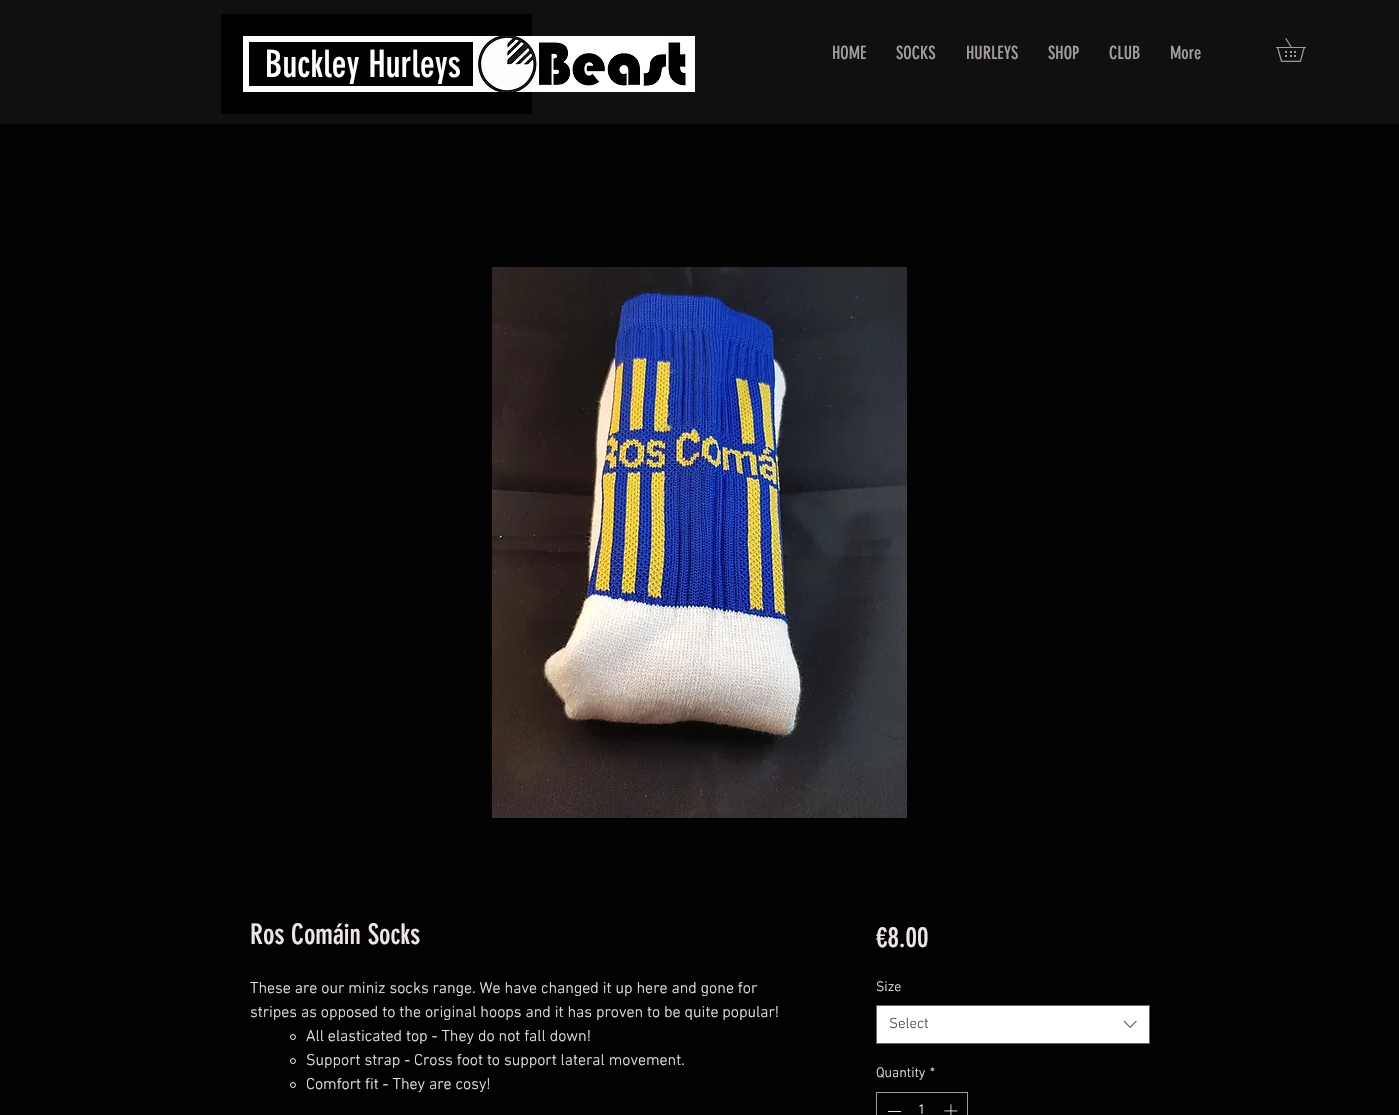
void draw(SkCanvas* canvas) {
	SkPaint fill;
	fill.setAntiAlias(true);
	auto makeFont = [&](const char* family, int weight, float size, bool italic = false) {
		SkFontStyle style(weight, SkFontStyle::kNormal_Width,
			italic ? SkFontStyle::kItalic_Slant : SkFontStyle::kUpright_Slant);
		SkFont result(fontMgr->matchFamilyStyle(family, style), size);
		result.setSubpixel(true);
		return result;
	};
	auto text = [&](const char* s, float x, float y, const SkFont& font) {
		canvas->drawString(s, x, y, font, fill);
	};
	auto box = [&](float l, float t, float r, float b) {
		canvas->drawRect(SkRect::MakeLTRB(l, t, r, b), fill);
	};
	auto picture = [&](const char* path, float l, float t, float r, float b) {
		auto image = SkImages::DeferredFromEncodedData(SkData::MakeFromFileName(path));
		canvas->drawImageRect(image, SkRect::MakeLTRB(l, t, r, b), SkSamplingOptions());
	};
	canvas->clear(0xFF020202);
	fill.setColor(0xFF101010);
	box(0, 0, 1399, 124);
	fill.setColor(0xFF000000);
	box(221, 14, 532, 114);
	fill.setStyle(SkPaint::kStroke_Style);
	fill.setStrokeWidth(6);
	fill.setColor(0xFFFFFFFF);
	canvas->drawRect(SkRect::MakeLTRB(246, 39, 507, 89), fill);
	picture("image0.png", 473, 36, 539, 92);
	picture("image1.png", 539, 36, 686, 92);
	fill.setStyle(SkPaint::kFill_Style);
	box(686, 36, 695, 92);
	picture("image2.png", 1276, 38, 1306, 62);
	picture("image3.png", 492, 267, 907, 818);
	fill.setStyle(SkPaint::kStroke_Style);
	fill.setStrokeWidth(1);
	fill.setColor(0xFFEEE6E6);
	canvas->drawCircle(293, 1037, 2.5f, fill);
	canvas->drawCircle(293, 1061, 2.5f, fill);
	canvas->drawCircle(293, 1085, 2.5f, fill);
	fill.setStyle(SkPaint::kFill_Style);
	fill.setColor(0xFFFFFFFF);
	canvas->drawRect(SkRect::MakeLTRB(876.5f, 1005.5f, 1149.5f, 1043.5f), fill);
	fill.setStyle(SkPaint::kStroke_Style);
	fill.setColor(0xFF666666);
	canvas->drawRect(SkRect::MakeLTRB(876.5f, 1005.5f, 1149.5f, 1043.5f), fill);
	picture("image4.png", 1123, 1020, 1137, 1028);
	fill.setColor(0xFF9A9A9A);
	canvas->drawRect(SkRect::MakeLTRB(876.5f, 1092.5f, 967.5f, 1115.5f), fill);
	fill.setStyle(SkPaint::kFill_Style);
	fill.setColor(0xFFEEE6E6);
	box(888, 1111, 901, 1112);
	picture("image5.png", 944, 1104, 958, 1115);
	auto font1 = makeFont("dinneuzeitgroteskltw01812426", 400, 37);
	fill.setColor(0xFFFFFFFF);
	text("Buckley Hurleys", 265, 77, font1);
	auto font2 = makeFont("dinneuzeitgroteskltw01812426", 400, 18);
	fill.setColor(0xFFA29C9C);
	text("HOME", 832, 59, font2);
	text("SOCKS", 896, 59, font2);
	text("HURLEYS", 966, 59, font2);
	text("SHOP", 1048, 59, font2);
	text("CLUB", 1109, 59, font2);
	text("More", 1170, 59, font2);
	auto font3 = makeFont("dinneuzeitgroteskltw01812426", 400, 28);
	fill.setColor(0xFFEEE6E6);
	text("Ros Comáin Socks", 250, 944, font3);
	auto font4 = makeFont("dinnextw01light", 300, 16);
	text("These are our miniz socks range. We have changed it up here and gone for", 250, 993, font4);
	text("stripes as opposed to the original hoops and it has proven to be quite popular!", 250, 1017, font4);
	text("All elasticated top - They do not fall down!", 306, 1041, font4);
	text("Support strap - Cross foot to support lateral movement.", 306, 1065, font4);
	text("Comfort fit - They are cosy!", 306, 1089, font4);
	text("€8.00", 876, 947, font3);
	auto font5 = makeFont("dinnextw01light", 300, 14);
	text("Size", 876, 991, font5);
	auto font6 = makeFont("dinnextw01light", 300, 15);
	fill.setColor(0xFF444444);
	text("Select", 889, 1028, font6);
	fill.setColor(0xFFEEE6E6);
	text("Quantity", 876, 1077, font5);
	text("*", 930, 1077, font5);
	text("1", 918, 1114, font5);
}
